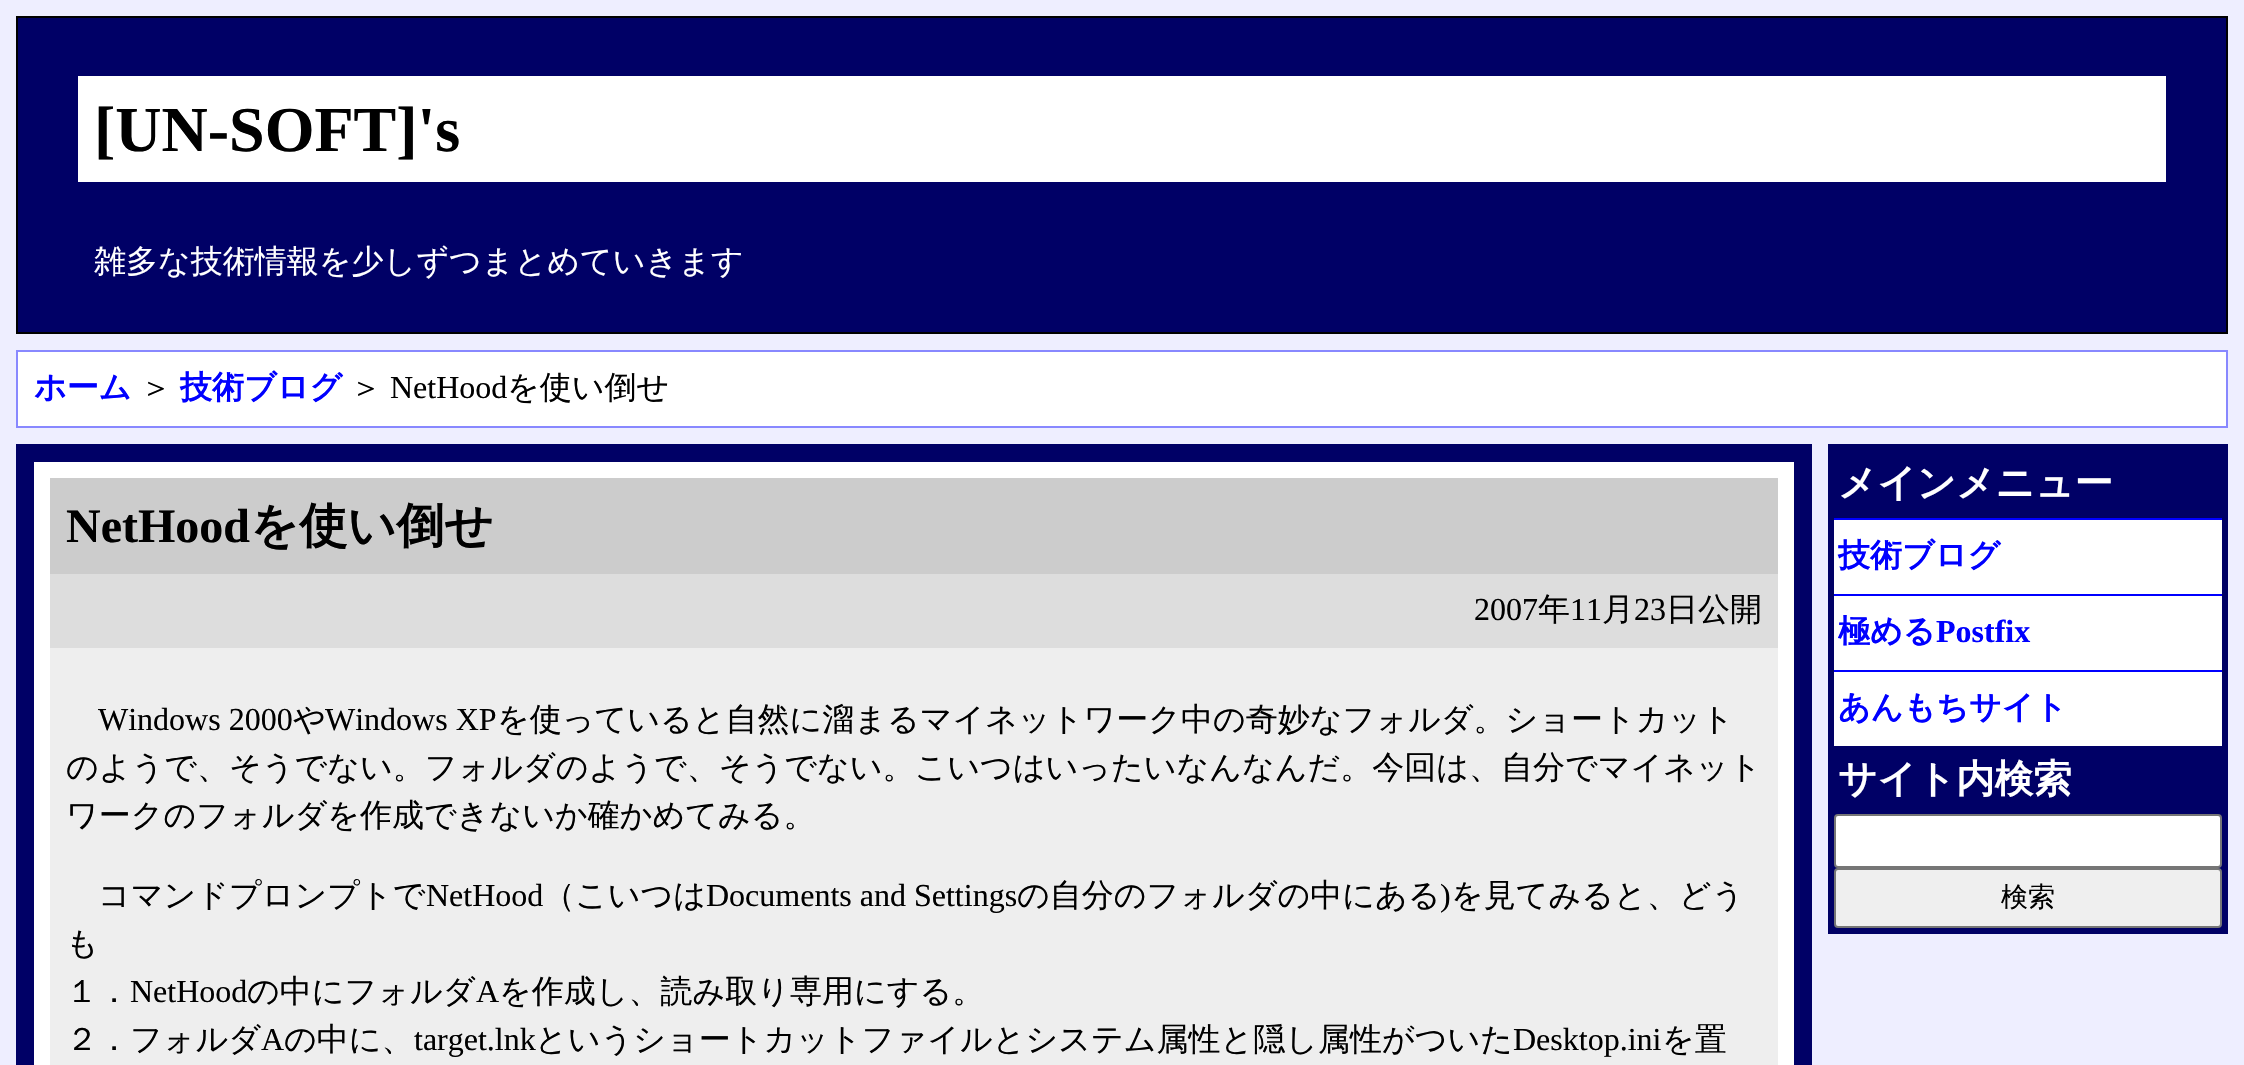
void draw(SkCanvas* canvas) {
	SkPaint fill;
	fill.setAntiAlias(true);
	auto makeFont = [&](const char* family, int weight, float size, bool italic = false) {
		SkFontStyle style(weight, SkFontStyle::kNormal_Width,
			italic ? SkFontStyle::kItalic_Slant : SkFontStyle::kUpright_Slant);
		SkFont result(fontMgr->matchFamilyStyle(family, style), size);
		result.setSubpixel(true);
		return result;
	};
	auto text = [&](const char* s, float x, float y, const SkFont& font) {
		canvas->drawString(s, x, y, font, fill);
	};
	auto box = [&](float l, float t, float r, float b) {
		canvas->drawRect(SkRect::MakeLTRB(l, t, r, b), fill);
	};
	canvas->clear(0xFFEEEEFF);
	fill.setColor(0xFF000066);
	canvas->drawRect(SkRect::MakeLTRB(17, 17, 2227, 333), fill);
	fill.setStyle(SkPaint::kStroke_Style);
	fill.setStrokeWidth(2);
	fill.setColor(0xFF000000);
	canvas->drawRect(SkRect::MakeLTRB(17, 17, 2227, 333), fill);
	fill.setStyle(SkPaint::kFill_Style);
	fill.setColor(0xFFFFFFFF);
	box(78, 76, 2166, 182);
	canvas->drawRect(SkRect::MakeLTRB(17, 351, 2227, 427), fill);
	fill.setStyle(SkPaint::kStroke_Style);
	fill.setColor(0xFF8888FF);
	canvas->drawRect(SkRect::MakeLTRB(17, 351, 2227, 427), fill);
	fill.setStyle(SkPaint::kFill_Style);
	fill.setColor(0xFF000066);
	box(16, 444, 1812, 1065);
	fill.setColor(0xFFFFFFFF);
	box(34, 462, 1794, 1065);
	fill.setColor(0xFFCCCCCC);
	box(50, 478, 1778, 574);
	fill.setColor(0xFFDDDDDD);
	box(50, 574, 1778, 648);
	fill.setColor(0xFFEEEEEE);
	box(50, 648, 1778, 1065);
	fill.setColor(0xFF000066);
	box(1828, 444, 2228, 934);
	fill.setColor(0xFFFFFFFF);
	box(1834, 520, 2222, 594);
	fill.setColor(0xFF0000FF);
	box(1834, 518, 2222, 520);
	fill.setColor(0xFFFFFFFF);
	box(1834, 596, 2222, 670);
	fill.setColor(0xFF0000FF);
	box(1834, 594, 2222, 596);
	fill.setColor(0xFFFFFFFF);
	box(1834, 672, 2222, 746);
	fill.setColor(0xFF0000FF);
	box(1834, 670, 2222, 672);
	fill.setColor(0xFFFFFFFF);
	canvas->drawRoundRect(SkRect::MakeLTRB(1835, 815, 2221, 867), 3, 3, fill);
	fill.setStyle(SkPaint::kStroke_Style);
	fill.setColor(0xFF767676);
	canvas->drawRoundRect(SkRect::MakeLTRB(1835, 815, 2221, 867), 3, 3, fill);
	fill.setStyle(SkPaint::kFill_Style);
	fill.setColor(0xFFEFEFEF);
	canvas->drawRoundRect(SkRect::MakeLTRB(1835, 869, 2221, 927), 3, 3, fill);
	fill.setStyle(SkPaint::kStroke_Style);
	fill.setColor(0xFF767676);
	canvas->drawRoundRect(SkRect::MakeLTRB(1835, 869, 2221, 927), 3, 3, fill);
	auto font1 = makeFont("Liberation Serif", 700, 64);
	fill.setStyle(SkPaint::kFill_Style);
	fill.setColor(0xFF000000);
	text("[UN-SOFT]'s", 94, 151, font1);
	auto font2 = makeFont("WenQuanYi Zen Hei", 500, 32);
	fill.setColor(0xFFFFFFFF);
	text("雑多な技術情報を少しずつまとめていきます", 94, 272, font2);
	auto font3 = makeFont("WenQuanYi Zen Hei", 700, 32);
	fill.setColor(0xFF0000FF);
	text("ホーム", 34, 398, font3);
	fill.setColor(0xFF000000);
	text("＞", 140, 398, font2);
	fill.setColor(0xFF0000FF);
	text("技術ブログ", 180, 398, font3);
	fill.setColor(0xFF000000);
	text("＞", 350, 398, font2);
	auto font4 = makeFont("Liberation Serif", 400, 32);
	text("NetHood", 390, 398, font4);
	text("を使い倒せ", 507, 398, font2);
	auto font5 = makeFont("Liberation Serif", 700, 48);
	text("NetHood", 66, 542, font5);
	auto font6 = makeFont("WenQuanYi Zen Hei", 700, 48);
	text("を使い倒せ", 250, 542, font6);
	text("2007", 1474, 620, font4);
	text("年", 1538, 620, font2);
	text("11", 1570, 620, font4);
	text("月", 1602, 620, font2);
	text("23", 1634, 620, font4);
	text("日公開", 1666, 620, font2);
	text("Windows 2000", 98, 730, font4);
	text("や", 293, 730, font2);
	text("Windows XP", 325, 730, font4);
	text("を使っていると自然に溜まるマイネットワーク中の奇妙なフォルダ。ショートカット", 497, 730, font2);
	text("のようで、そうでない。フォルダのようで、そうでない。こいつはいったいなんなんだ。今回は、自分でマイネット", 66, 778, font2);
	text("ワークのフォルダを作成できないか確かめてみる。", 66, 826, font2);
	text("コマンドプロンプトで", 98, 906, font2);
	text("NetHood", 426, 906, font4);
	text("（こいつは", 543, 906, font2);
	text("Documents and Settings", 706, 906, font4);
	text("の自分のフォルダの中にある", 1017, 906, font2);
	text(")", 1440, 906, font4);
	text("を見てみると、どう", 1451, 906, font2);
	text("も", 66, 954, font2);
	text("１．", 66, 1002, font2);
	text("NetHood", 130, 1002, font4);
	text("の中にフォルダ", 247, 1002, font2);
	text("A", 476, 1002, font4);
	text("を作成し、読み取り専用にする。", 499, 1002, font2);
	text("２．フォルダ", 66, 1050, font2);
	text("A", 261, 1050, font4);
	text("の中に、", 284, 1050, font2);
	text("target.lnk", 414, 1050, font4);
	text("というショートカットファイルとシステム属性と隠し属性がついた", 535, 1050, font2);
	text("Desktop.ini", 1513, 1050, font4);
	text("を置", 1662, 1050, font2);
	auto font7 = makeFont("WenQuanYi Zen Hei", 700, 38.5f);
	fill.setColor(0xFFFFFFFF);
	text("メインメニュー", 1838, 496, font7);
	fill.setColor(0xFF0000FF);
	text("技術ブログ", 1838, 566, font3);
	text("極める", 1838, 642, font3);
	auto font8 = makeFont("Liberation Serif", 700, 32);
	text("Postfix", 1936, 642, font8);
	text("あんもちサイト", 1838, 718, font3);
	fill.setColor(0xFFFFFFFF);
	text("サイト内検索", 1838, 792, font7);
	auto font9 = makeFont("WenQuanYi Zen Hei", 500, 27);
	fill.setColor(0xFF000000);
	text("検索", 2001, 906, font9);
}
